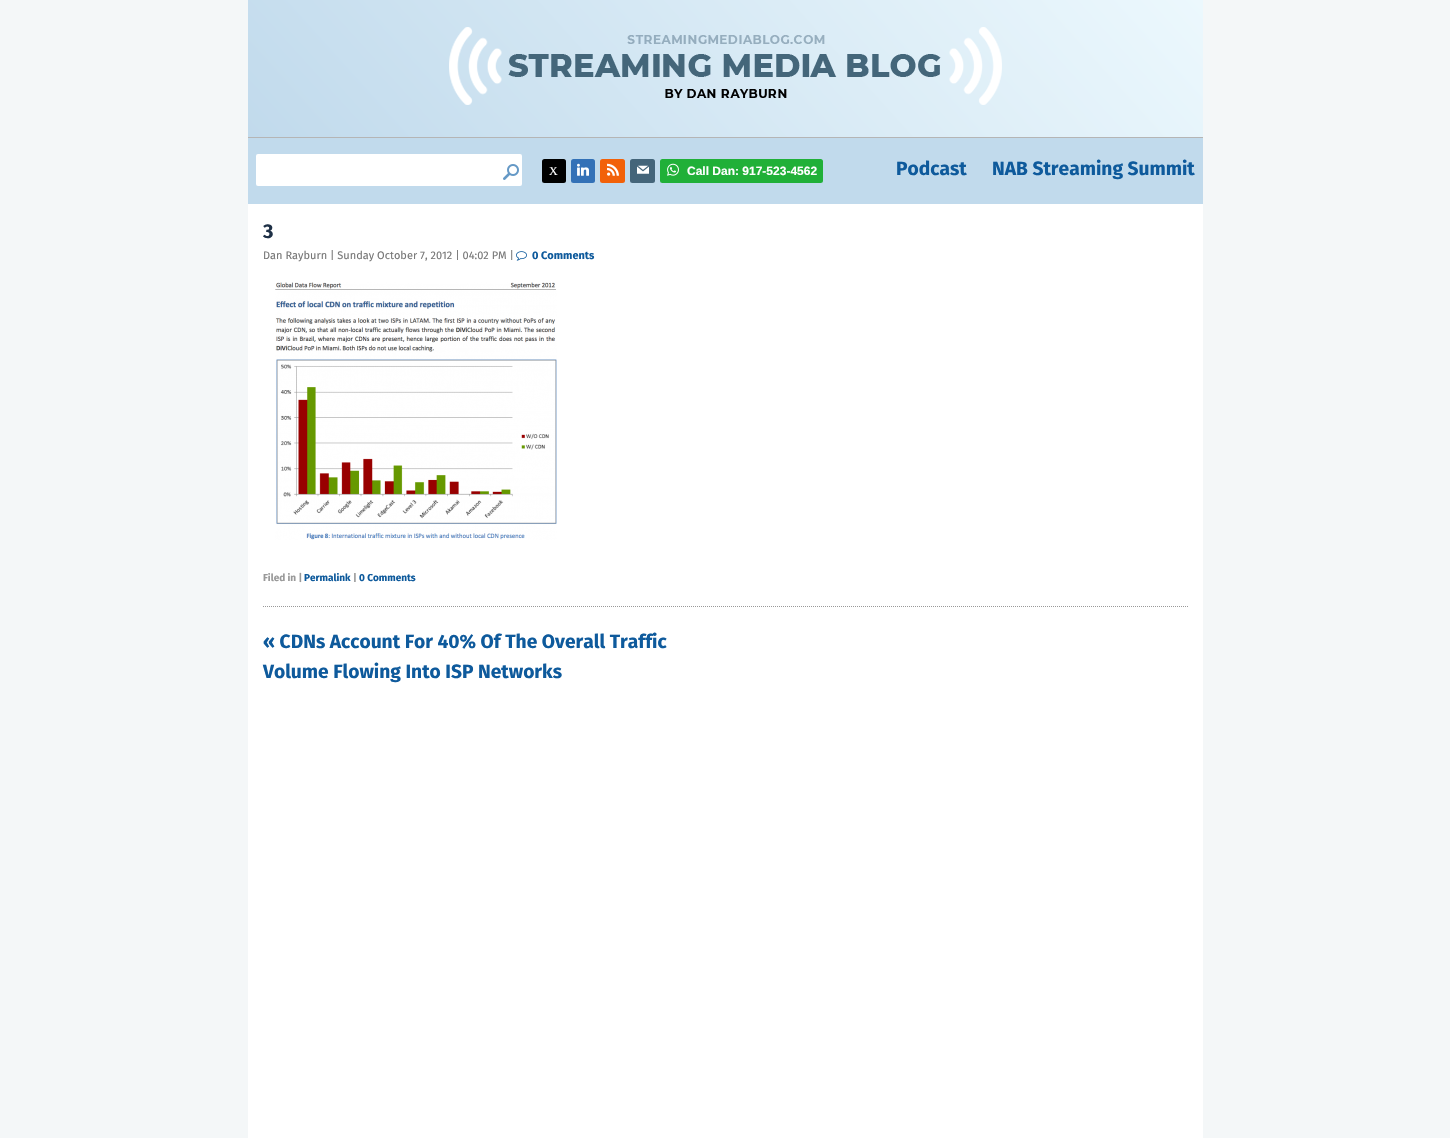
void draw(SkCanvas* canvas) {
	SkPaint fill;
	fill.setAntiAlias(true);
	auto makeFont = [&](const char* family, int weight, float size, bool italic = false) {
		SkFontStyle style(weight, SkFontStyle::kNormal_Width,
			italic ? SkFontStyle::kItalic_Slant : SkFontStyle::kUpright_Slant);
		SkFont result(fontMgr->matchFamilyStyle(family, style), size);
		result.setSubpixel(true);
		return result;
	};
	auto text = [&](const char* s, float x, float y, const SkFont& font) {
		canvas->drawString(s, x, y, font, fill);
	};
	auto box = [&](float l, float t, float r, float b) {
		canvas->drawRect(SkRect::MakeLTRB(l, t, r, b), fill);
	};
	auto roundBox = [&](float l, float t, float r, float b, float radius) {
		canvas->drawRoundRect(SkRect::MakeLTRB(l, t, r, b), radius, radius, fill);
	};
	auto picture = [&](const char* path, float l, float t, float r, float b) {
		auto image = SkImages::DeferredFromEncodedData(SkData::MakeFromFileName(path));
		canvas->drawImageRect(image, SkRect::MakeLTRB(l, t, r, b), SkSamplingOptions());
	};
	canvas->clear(0xFFF4F7F8);
	{
		const SkColor colors[] = {0xFFECF8FD, 0xFFC1DAEC};
		const float stops[] = {0, 1};
		const SkPoint ends[] = {{1023, -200}, {428, 337}};
		fill.setShader(SkGradientShader::MakeLinear(ends, colors, stops, 2, SkTileMode::kClamp));
		fill.setAlpha(255);
	}
	box(248, 0, 1203, 137);
	fill.setShader(nullptr);
	fill.setColor(0xFFB5B5B5);
	box(248, 137, 1203, 138);
	picture("image0.png", 449, 27, 1002, 105);
	fill.setColor(0xFFC1DAEC);
	box(248, 138, 1203, 204);
	fill.setColor(0xFFFFFFFF);
	roundBox(256, 154, 522, 186, 2);
	picture("image1.png", 503, 164, 519, 180);
	fill.setColor(0xFF000000);
	roundBox(542, 159, 566, 183, 2.5f);
	fill.setColor(0xFF3371B7);
	roundBox(571, 159, 595, 183, 2.5f);
	picture("image2.png", 577, 163, 589, 176);
	fill.setColor(0xFFF26109);
	roundBox(600, 159, 625, 183, 2.5f);
	picture("image3.png", 607, 163, 619, 176);
	fill.setColor(0xFF44657A);
	roundBox(630, 159, 655, 183, 2.5f);
	picture("image4.png", 637, 165, 649, 174);
	fill.setColor(0xFF20B038);
	roundBox(660, 159, 823, 183, 2.5f);
	picture("image5.png", 667, 163, 679, 176);
	fill.setColor(0xFFFFFFFF);
	box(248, 204, 1203, 1138);
	fill.setStyle(SkPaint::kStroke_Style);
	fill.setStrokeWidth(1);
	fill.setColor(0xFF999999);
	fill.setPathEffect(SkDashPathEffect::Make({{1, 1}}, 0));
	canvas->drawPath(SkPathBuilder().moveTo(263, 606.5f).lineTo(1188, 606.5f).detach(), fill);
	fill.setPathEffect(nullptr);
	picture("image6.png", 516, 251, 527, 261);
	picture("image7.png", 275, 282, 557, 540);
	auto font1 = makeFont("Liberation Serif", 400, 12);
	fill.setStyle(SkPaint::kFill_Style);
	fill.setColor(0xFFFFFFFF);
	text("X", 549, 175, font1);
	auto font2 = makeFont("Liberation Sans", 700, 12);
	text("Call Dan: 917-523-4562", 687, 175, font2);
	auto font3 = makeFont("Fira Sans", 700, 19.2f);
	fill.setColor(0xFF0E5A9C);
	text("Podcast", 896, 175, font3);
	text("NAB Streaming Summit", 992, 175, font3);
	auto font4 = makeFont("Fira Sans", 700, 20);
	fill.setColor(0xFF1E3046);
	text("3", 263, 238, font4);
	auto font5 = makeFont("Fira Sans", 400, 11);
	fill.setColor(0xFF777777);
	text("Dan Rayburn | Sunday October 7, 2012 | 04:02 PM |", 263, 259, font5);
	auto font6 = makeFont("Fira Sans", 700, 11);
	fill.setColor(0xFF0E5A9C);
	text("0 Comments", 532, 259, font6);
	auto font7 = makeFont("Fira Sans", 700, 10);
	fill.setColor(0xFF999999);
	text("Filed in |", 263, 581, font7);
	fill.setColor(0xFF0E5A9C);
	text("Permalink", 304, 581, font7);
	fill.setColor(0xFF999999);
	text("|", 353, 581, font7);
	fill.setColor(0xFF0E5A9C);
	text("0 Comments", 359, 581, font7);
	text("« CDNs Account For 40% Of The Overall Traffic", 263, 648, font3);
	text("Volume Flowing Into ISP Networks", 263, 678, font3);
}
